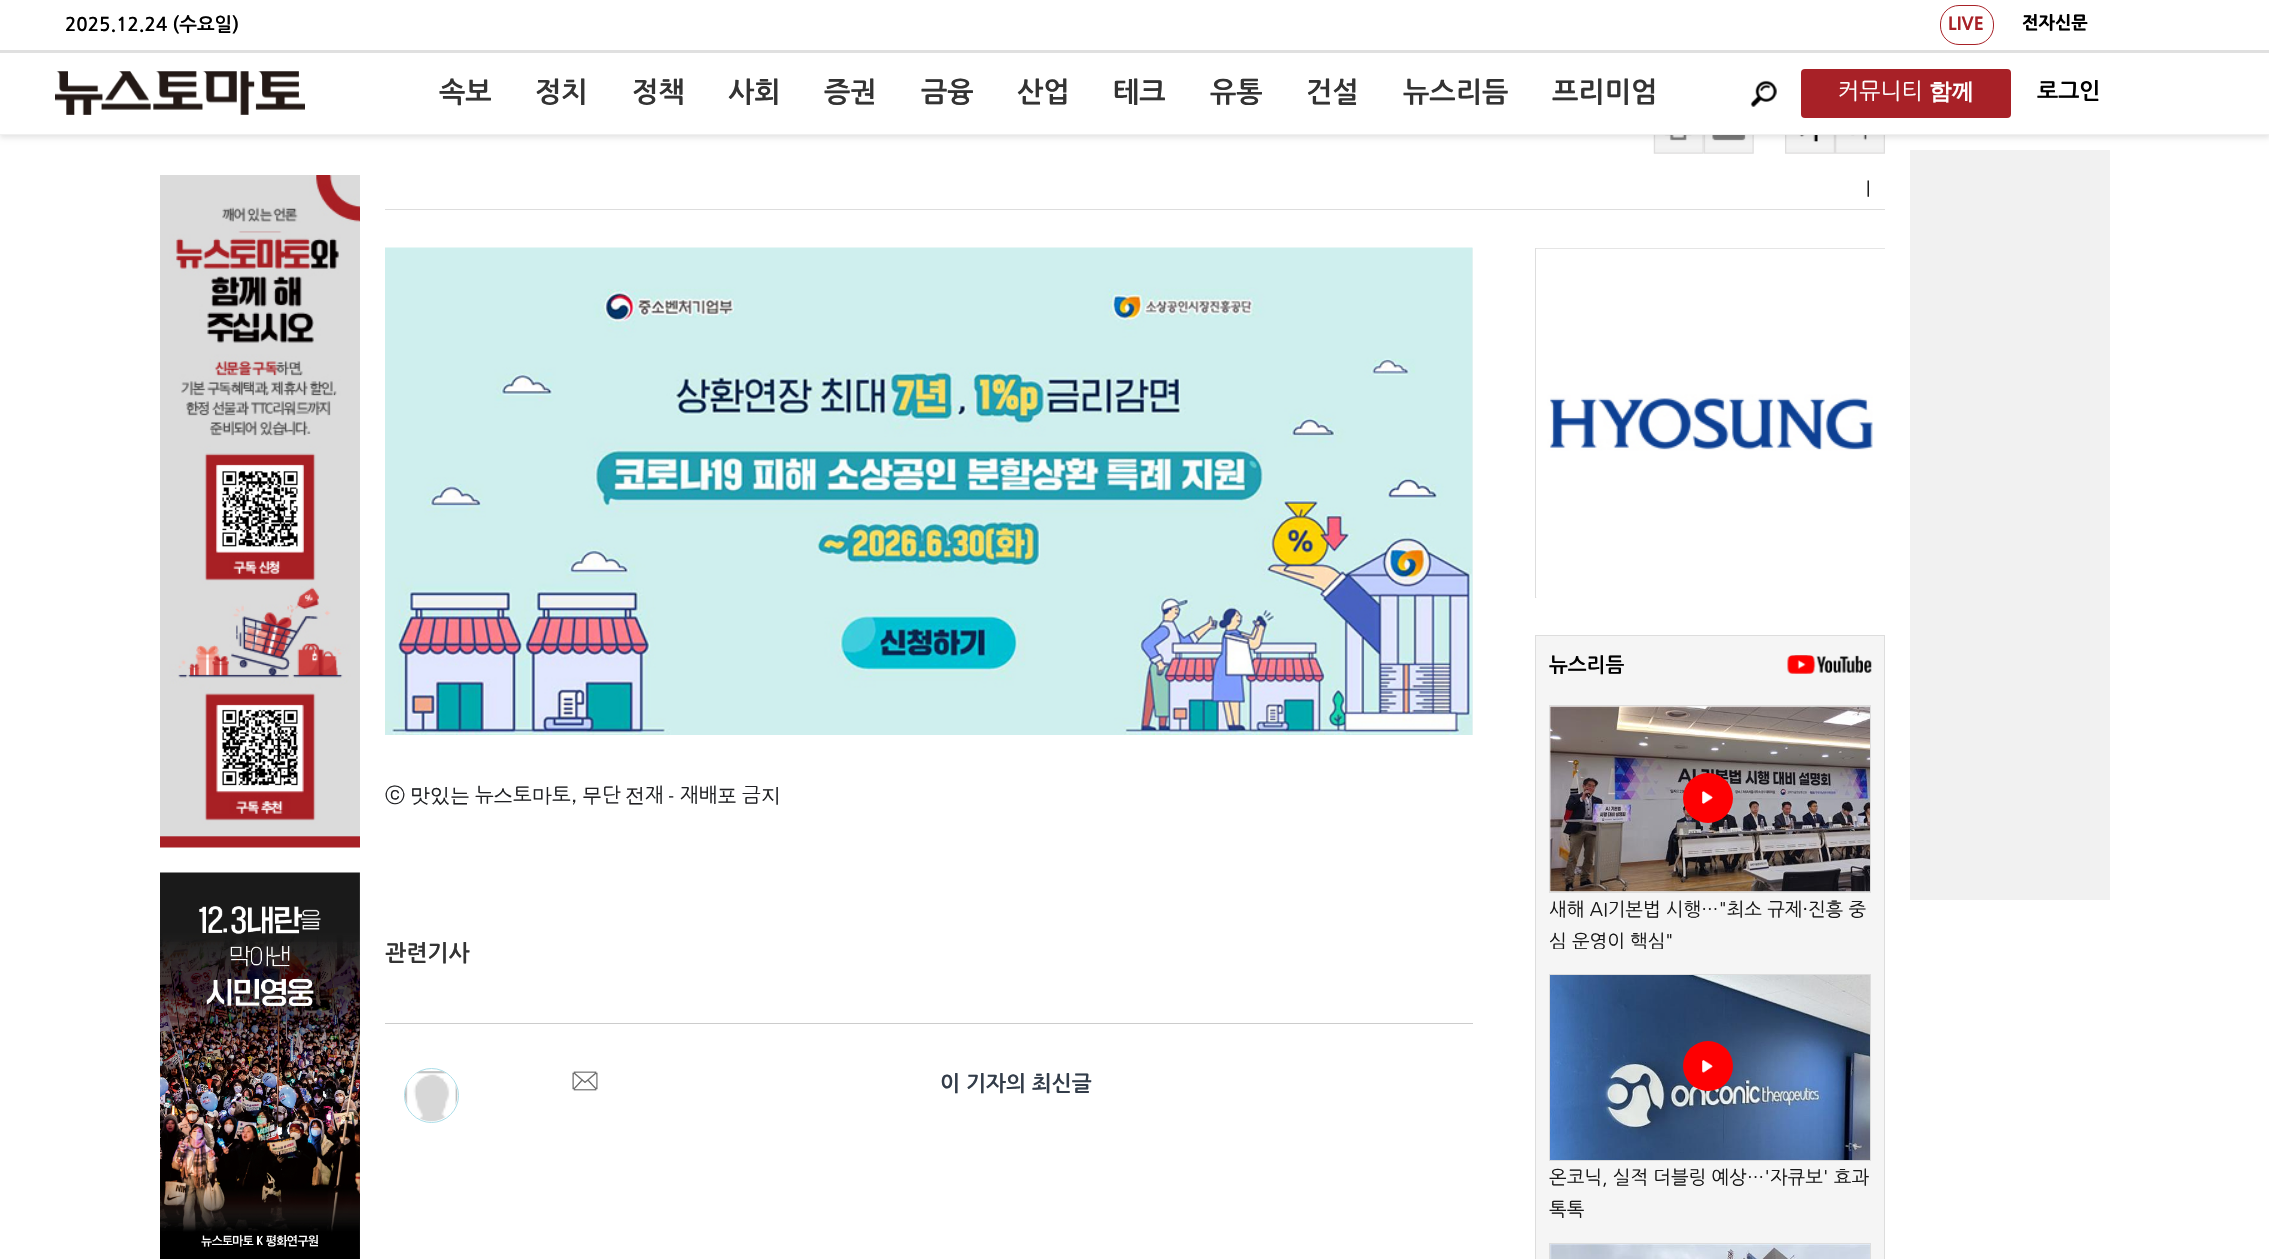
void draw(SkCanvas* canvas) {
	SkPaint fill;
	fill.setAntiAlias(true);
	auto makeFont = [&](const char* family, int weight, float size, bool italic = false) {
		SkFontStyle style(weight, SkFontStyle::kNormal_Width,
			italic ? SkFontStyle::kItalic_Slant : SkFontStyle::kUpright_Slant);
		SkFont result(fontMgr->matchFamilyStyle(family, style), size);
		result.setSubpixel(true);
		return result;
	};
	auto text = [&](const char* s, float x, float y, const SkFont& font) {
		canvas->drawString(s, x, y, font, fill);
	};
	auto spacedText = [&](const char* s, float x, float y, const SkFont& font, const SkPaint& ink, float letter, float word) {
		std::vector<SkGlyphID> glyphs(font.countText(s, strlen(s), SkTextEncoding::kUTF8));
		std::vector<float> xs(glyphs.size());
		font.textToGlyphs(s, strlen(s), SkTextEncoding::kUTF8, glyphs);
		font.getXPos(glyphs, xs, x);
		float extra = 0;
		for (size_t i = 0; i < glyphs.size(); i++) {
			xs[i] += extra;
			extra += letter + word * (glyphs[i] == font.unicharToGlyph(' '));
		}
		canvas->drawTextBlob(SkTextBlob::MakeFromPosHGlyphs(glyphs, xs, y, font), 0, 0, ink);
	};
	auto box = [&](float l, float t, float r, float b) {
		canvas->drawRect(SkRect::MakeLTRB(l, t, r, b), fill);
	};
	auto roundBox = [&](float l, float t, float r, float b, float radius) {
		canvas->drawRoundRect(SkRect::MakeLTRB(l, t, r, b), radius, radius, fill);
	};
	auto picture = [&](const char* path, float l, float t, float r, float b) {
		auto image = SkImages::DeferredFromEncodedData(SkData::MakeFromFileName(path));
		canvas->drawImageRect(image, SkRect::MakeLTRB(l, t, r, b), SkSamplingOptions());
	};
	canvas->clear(0xFFFFFFFF);
	picture("image4.png", 1653, 135, 1704, 154);
	picture("image5.png", 1704, 135, 1754, 154);
	picture("image6.png", 1785, 135, 1835, 154);
	picture("image7.png", 1835, 135, 1885, 154);
	fill.setColor(0x1A000000);
	fill.setMaskFilter(SkMaskFilter::MakeBlur(kNormal_SkBlurStyle, 2.5f));
	canvas->drawRect(SkRect::MakeLTRB(0, 3, 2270, 138), fill);
	fill.setMaskFilter(nullptr);
	fill.setColor(0xFFFFFFFF);
	box(0, 0, 2269, 134);
	fill.setColor(0xFFE0E0E0);
	box(0, 50, 2269, 53);
	fill.setStyle(SkPaint::kStroke_Style);
	fill.setStrokeWidth(1);
	fill.setColor(0xFFA82127);
	canvas->drawRoundRect(SkRect::MakeLTRB(1940.5f, 5.5f, 1993.5f, 44.5f), 18.5f, 18.5f, fill);
	fill.setStyle(SkPaint::kFill_Style);
	fill.setColor(0xFFF0F0F0);
	box(0, 134, 2269, 135);
	picture("image0.png", 55, 71, 305, 115);
	picture("image1.png", 1750, 80, 1777, 107);
	fill.setColor(0xFFA82127);
	roundBox(1801, 69, 2011, 118, 4);
	picture("image2.png", 160, 175, 360, 848);
	picture("image3.png", 160, 872, 360, 1259);
	fill.setColor(0xFFDDDDDD);
	box(385, 209, 1885, 210);
	fill.setColor(0xFFF1F1F1);
	box(1910, 150, 2110, 900);
	fill.setColor(0xFFF5F5F5);
	box(1472, 248, 1473, 735);
	picture("image8.png", 385, 247, 1473, 735);
	fill.setColor(0xFFCCCCCC);
	box(385, 1023, 1473, 1024);
	fill.setStyle(SkPaint::kStroke_Style);
	fill.setColor(0xFFA9DDE8);
	canvas->drawCircle(431.5f, 1095.5f, 27, fill);
	picture("image9.png", 405, 1071, 458, 1122);
	picture("image10.png", 572, 1071, 598, 1091);
	fill.setColor(0xFFDDDDDD);
	canvas->drawRect(SkRect::MakeLTRB(1535.5f, 248.5f, 1884.5f, 597.5f), fill);
	picture("image11.png", 1536, 248, 1885, 598);
	fill.setStyle(SkPaint::kFill_Style);
	fill.setColor(0xFFF5F5F5);
	canvas->drawRect(SkRect::MakeLTRB(1535.5f, 635.5f, 1884.5f, 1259.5f), fill);
	fill.setStyle(SkPaint::kStroke_Style);
	fill.setColor(0xFFDDDDDD);
	canvas->drawRect(SkRect::MakeLTRB(1535.5f, 635.5f, 1884.5f, 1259.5f), fill);
	picture("image12.png", 1787, 655, 1872, 674);
	canvas->drawRect(SkRect::MakeLTRB(1549.5f, 705.5f, 1870.5f, 892.5f), fill);
	picture("image13.png", 1550, 706, 1870, 892);
	fill.setStyle(SkPaint::kFill_Style);
	fill.setColor(0xFFFE0002);
	canvas->drawCircle(1708, 798, 25, fill);
	picture("image14.png", 1702, 791, 1713, 804);
	fill.setStyle(SkPaint::kStroke_Style);
	fill.setColor(0xFFDDDDDD);
	canvas->drawRect(SkRect::MakeLTRB(1549.5f, 974.5f, 1870.5f, 1160.5f), fill);
	picture("image15.png", 1550, 975, 1870, 1160);
	fill.setStyle(SkPaint::kFill_Style);
	fill.setColor(0xFFFE0002);
	canvas->drawCircle(1708, 1066, 25, fill);
	picture("image16.png", 1702, 1060, 1713, 1073);
	fill.setStyle(SkPaint::kStroke_Style);
	fill.setColor(0xFFDDDDDD);
	canvas->drawRect(SkRect::MakeLTRB(1549.5f, 1243.5f, 1870.5f, 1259.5f), fill);
	picture("image17.png", 1550, 1244, 1870, 1259);
	auto font1 = makeFont("NanumGothic", 700, 18.75f);
	fill.setStyle(SkPaint::kFill_Style);
	fill.setColor(0xFF000000);
	text("2025.12.24 (수요일)", 65, 31, font1);
	auto font2 = makeFont("NanumGothic", 800, 17.5f);
	fill.setColor(0xFFA82127);
	spacedText("LIVE", 1948, 30, font2, fill, 0.5f, 0);
	fill.setColor(0xFF000000);
	text("전자신문", 2022, 29, font2);
	auto font3 = makeFont("NanumGothic", 700, 28);
	fill.setColor(0xFF333333);
	text("속보", 439, 102, font3);
	text("정치", 535, 102, font3);
	text("정책", 632, 102, font3);
	text("사회", 728, 102, font3);
	text("증권", 824, 102, font3);
	text("금융", 921, 102, font3);
	text("산업", 1017, 102, font3);
	text("테크", 1113, 102, font3);
	text("유통", 1210, 102, font3);
	text("건설", 1306, 102, font3);
	text("뉴스리듬", 1403, 102, font3);
	text("프리미엄", 1552, 102, font3);
	auto font4 = makeFont("NanumGothic", 400, 22.5f);
	fill.setColor(0xFFFFFFFF);
	text("커뮤니티", 1838, 99, font4);
	auto font5 = makeFont("WenQuanYi Zen Hei", 700, 22.5f);
	text("함께", 1929, 99, font5);
	auto font6 = makeFont("NanumGothic", 700, 22.5f);
	fill.setColor(0xFF000000);
	text("로그인", 2037, 99, font6);
	auto font7 = makeFont("NanumGothic", 400, 17.5f);
	text("ㅣ", 1860, 195, font7);
	auto font8 = makeFont("WenQuanYi Zen Hei", 500, 20);
	fill.setColor(0xFF202124);
	spacedText("ⓒ 맛있는", 385, 802, font8, fill, 0, -1);
	auto font9 = makeFont("NanumGothic", 400, 20);
	text("뉴", 475, 802, font9);
	text("스", 493, 802, font8);
	text("토", 513, 802, font9);
	text("마", 532, 802, font8);
	text("토", 552, 802, font9);
	spacedText(", 무", 571, 802, font8, fill, 0, -1);
	text("단", 602, 802, font9);
	text("전", 625, 802, font8);
	text("재", 645, 802, font9);
	text("-", 669, 802, font8);
	text("재배", 680, 802, font9);
	text("포", 717, 802, font8);
	text("금", 742, 802, font9);
	text("지", 761, 802, font8);
	fill.setColor(0xFF333333);
	text("관련기사", 385, 961, font6);
	auto font10 = makeFont("NanumGothic", 700, 21.25f);
	fill.setColor(0xFF333D4A);
	text("이 기자의 최신글", 940, 1091, font10);
	auto font11 = makeFont("NanumGothic", 700, 20);
	fill.setColor(0xFF000000);
	text("뉴스리듬", 1549, 672, font11);
	auto font12 = makeFont("NanumGothic", 400, 18.75f);
	fill.setColor(0xFF181818);
	text("새해 AI기본법 시행…\"최소 규제·진흥 중", 1549, 916, font12);
	canvas->save();
	canvas->clipRect(SkRect::MakeLTRB(1549, 893, 1871, 949));
	text("심 운영이 핵심\"", 1549, 948, font12);
	canvas->restore();
	text("온코닉, 실적 더블링 예상…'자큐보' 효과", 1549, 1184, font12);
	text("톡톡", 1549, 1216, font12);
}
